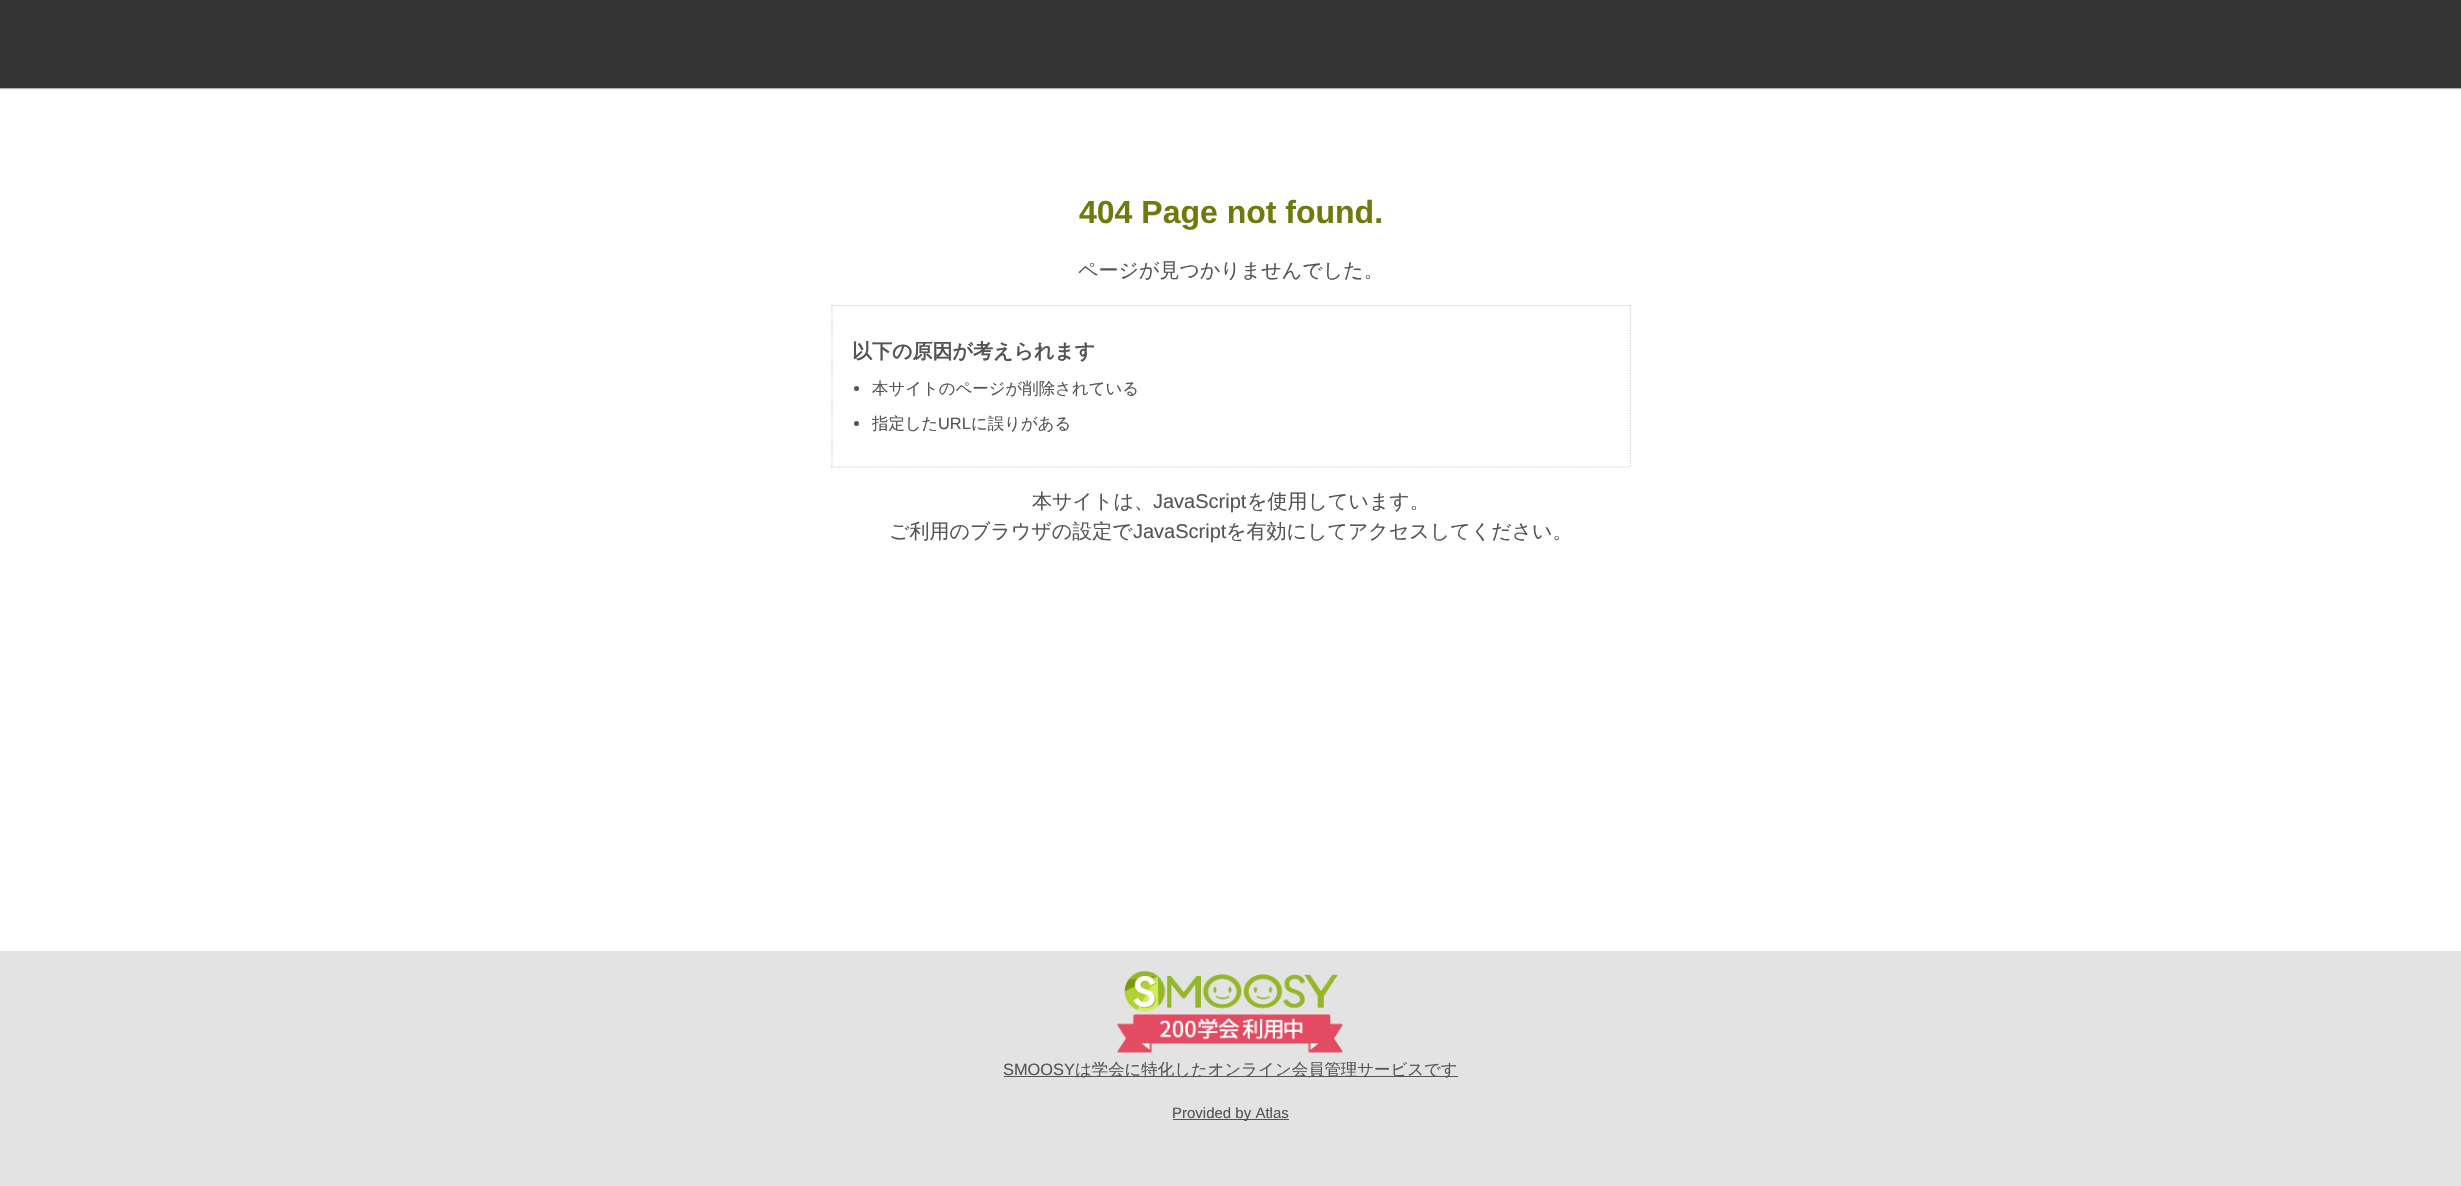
void draw(SkCanvas* canvas) {
	SkPaint fill;
	fill.setAntiAlias(true);
	auto makeFont = [&](const char* family, int weight, float size, bool italic = false) {
		SkFontStyle style(weight, SkFontStyle::kNormal_Width,
			italic ? SkFontStyle::kItalic_Slant : SkFontStyle::kUpright_Slant);
		SkFont result(fontMgr->matchFamilyStyle(family, style), size);
		result.setSubpixel(true);
		return result;
	};
	auto text = [&](const char* s, float x, float y, const SkFont& font) {
		canvas->drawString(s, x, y, font, fill);
	};
	auto box = [&](float l, float t, float r, float b) {
		canvas->drawRect(SkRect::MakeLTRB(l, t, r, b), fill);
	};
	auto picture = [&](const char* path, float l, float t, float r, float b) {
		auto image = SkImages::DeferredFromEncodedData(SkData::MakeFromFileName(path));
		canvas->drawImageRect(image, SkRect::MakeLTRB(l, t, r, b), SkSamplingOptions());
	};
	canvas->clear(0xFFFFFFFF);
	fill.setColor(0x4D000000);
	fill.setMaskFilter(SkMaskFilter::MakeBlur(kNormal_SkBlurStyle, 0.5f));
	canvas->drawRect(SkRect::MakeLTRB(0, 1, 2461, 89), fill);
	fill.setMaskFilter(nullptr);
	fill.setColor(0xFF333333);
	box(0, 0, 2461, 88);
	fill.setStyle(SkPaint::kStroke_Style);
	fill.setStrokeWidth(1.2f);
	fill.setColor(0xFFCCCCCC);
	fill.setPathEffect(SkDashPathEffect::Make({{1.25f, 1.25f}}, 0));
	canvas->drawPath(SkPathBuilder().moveTo(831, 305.5f).lineTo(1631, 305.5f).detach(), fill);
	fill.setPathEffect(nullptr);
	fill.setPathEffect(SkDashPathEffect::Make({{1.25f, 1.25f}}, 0));
	canvas->drawPath(SkPathBuilder().moveTo(1630.5f, 305).lineTo(1630.5f, 467.5f).detach(), fill);
	fill.setPathEffect(nullptr);
	fill.setPathEffect(SkDashPathEffect::Make({{1.25f, 1.25f}}, 0));
	canvas->drawPath(SkPathBuilder().moveTo(831, 467).lineTo(1631, 467).detach(), fill);
	fill.setPathEffect(nullptr);
	fill.setPathEffect(SkDashPathEffect::Make({{1.25f, 1.25f}}, 0));
	canvas->drawPath(SkPathBuilder().moveTo(832, 305).lineTo(832, 467.5f).detach(), fill);
	fill.setPathEffect(nullptr);
	fill.setStyle(SkPaint::kFill_Style);
	fill.setColor(0xFF545454);
	canvas->drawCircle(856.5f, 388.5f, 2.5f, fill);
	canvas->drawCircle(856.5f, 423.5f, 2.5f, fill);
	fill.setColor(0xFFE3E3E3);
	box(0, 951, 2461, 1186);
	picture("image0.png", 1117, 971, 1343, 1053);
	fill.setColor(0xFF545454);
	box(1004, 1076, 1458, 1077);
	box(1173, 1119, 1289, 1120);
	auto font1 = makeFont("Liberation Sans", 700, 32);
	fill.setColor(0xFF6E7B0C);
	text("404 Page not found.", 1079, 223, font1);
	auto font2 = makeFont("WenQuanYi Zen Hei", 500, 20);
	fill.setColor(0xFF545454);
	text("ページが見つかりませんでした。", 1078, 277, font2);
	auto font3 = makeFont("WenQuanYi Zen Hei", 700, 20);
	text("以下の原因が考えられます", 852, 358, font3);
	auto font4 = makeFont("WenQuanYi Zen Hei", 500, 16.4f);
	text("本サイトのページが削除されている", 872, 394, font4);
	text("指定した", 872, 429, font4);
	auto font5 = makeFont("Liberation Sans", 400, 16.4f);
	text("URL", 938, 429, font5);
	text("に誤りがある", 971, 429, font4);
	text("本サイトは、", 1032, 508, font2);
	auto font6 = makeFont("Liberation Sans", 400, 20);
	text("JavaScript", 1153, 508, font6);
	text("を使用しています。", 1247, 508, font2);
	text("ご利用のブラウザの設定で", 889, 538, font2);
	text("JavaScript", 1133, 538, font6);
	text("を有効にしてアクセスしてください。", 1226, 538, font2);
	text("SMOOSY", 1003, 1075, font5);
	text("は学会に特化したオンライン会員管理サービスです", 1075, 1075, font4);
	auto font7 = makeFont("Liberation Sans", 400, 15);
	text("Provided by Atlas", 1172, 1118, font7);
}
